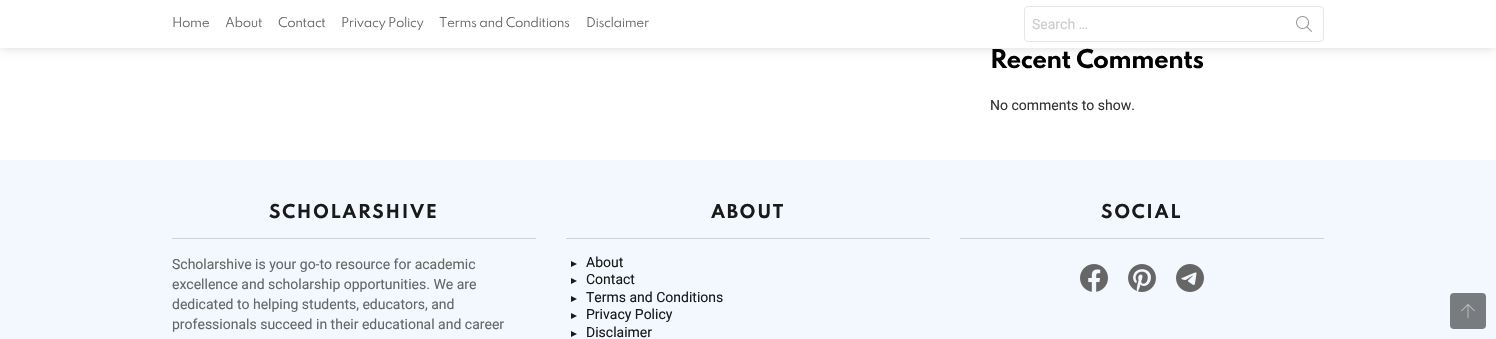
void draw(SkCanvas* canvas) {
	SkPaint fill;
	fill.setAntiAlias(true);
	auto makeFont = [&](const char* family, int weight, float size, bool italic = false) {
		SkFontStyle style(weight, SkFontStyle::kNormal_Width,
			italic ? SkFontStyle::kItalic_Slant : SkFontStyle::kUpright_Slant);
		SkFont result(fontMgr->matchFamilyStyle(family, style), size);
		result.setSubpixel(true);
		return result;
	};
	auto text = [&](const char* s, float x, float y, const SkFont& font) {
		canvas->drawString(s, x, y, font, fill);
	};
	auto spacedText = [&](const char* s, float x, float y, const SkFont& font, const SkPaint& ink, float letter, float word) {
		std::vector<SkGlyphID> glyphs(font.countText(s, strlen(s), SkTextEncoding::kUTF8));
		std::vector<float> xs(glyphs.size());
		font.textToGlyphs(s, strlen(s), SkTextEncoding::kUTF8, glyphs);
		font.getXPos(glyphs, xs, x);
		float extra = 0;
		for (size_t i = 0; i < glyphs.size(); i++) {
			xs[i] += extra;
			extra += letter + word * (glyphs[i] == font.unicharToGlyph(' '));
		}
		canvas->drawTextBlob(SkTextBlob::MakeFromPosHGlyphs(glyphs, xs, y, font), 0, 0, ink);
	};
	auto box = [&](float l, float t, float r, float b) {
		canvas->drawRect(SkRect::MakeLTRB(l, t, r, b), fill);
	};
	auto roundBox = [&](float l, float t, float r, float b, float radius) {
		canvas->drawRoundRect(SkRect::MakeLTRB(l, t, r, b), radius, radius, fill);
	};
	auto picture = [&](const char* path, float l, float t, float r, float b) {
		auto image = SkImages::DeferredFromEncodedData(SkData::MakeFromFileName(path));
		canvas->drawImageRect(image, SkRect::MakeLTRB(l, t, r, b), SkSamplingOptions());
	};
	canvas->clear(0xFFFFFFFF);
	fill.setColor(0x26000000);
	fill.setMaskFilter(SkMaskFilter::MakeBlur(kNormal_SkBlurStyle, 5));
	canvas->drawRect(SkRect::MakeLTRB(0, 0, 1496, 48), fill);
	fill.setMaskFilter(nullptr);
	fill.setColor(0xFFFFFFFF);
	box(0, 0, 1496, 48);
	fill.setStyle(SkPaint::kStroke_Style);
	fill.setStrokeWidth(1);
	fill.setColor(0xFFE6E6E6);
	canvas->drawRoundRect(SkRect::MakeLTRB(1024.5f, 6.5f, 1323.5f, 41.5f), 3.5f, 3.5f, fill);
	picture("image0.png", 1296, 16, 1312, 32);
	fill.setStyle(SkPaint::kFill_Style);
	fill.setColor(0xFFF2F8FD);
	box(0, 160, 1496, 339);
	fill.setColor(0xFFCED3D7);
	box(172, 238, 536, 239);
	box(566, 238, 930, 239);
	fill.setColor(0xFF1A1A1A);
	canvas->drawPath(SkPathBuilder().moveTo(577, 264).lineTo(571, 261).lineTo(571, 267).close().detach(), fill);
	canvas->drawPath(SkPathBuilder().moveTo(577, 281).lineTo(571, 278).lineTo(571, 284).close().detach(), fill);
	canvas->drawPath(SkPathBuilder().moveTo(577, 299).lineTo(571, 296).lineTo(571, 302).close().detach(), fill);
	canvas->drawPath(SkPathBuilder().moveTo(577, 316).lineTo(571, 313).lineTo(571, 319).close().detach(), fill);
	canvas->drawPath(SkPathBuilder().moveTo(577, 334).lineTo(571, 331).lineTo(571, 337).close().detach(), fill);
	fill.setColor(0xFFCED3D7);
	box(960, 238, 1324, 239);
	picture("image1.png", 1080, 264, 1108, 292);
	picture("image2.png", 1128, 264, 1156, 292);
	picture("image3.png", 1176, 264, 1204, 292);
	fill.setColor(0xFF797C7F);
	roundBox(1450, 293, 1486, 329, 4);
	picture("image4.png", 1461, 304, 1475, 318);
	auto font1 = makeFont("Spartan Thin", 400, 12);
	fill.setColor(0xFF666666);
	spacedText("Home", 172, 27, font1, fill, -0.4f, 0);
	spacedText("About", 225, 27, font1, fill, -0.4f, 0);
	spacedText("Contact", 278, 27, font1, fill, -0.4f, 0);
	spacedText("Privacy Policy", 341, 27, font1, fill, -0.4f, 0);
	spacedText("Terms and Conditions", 439, 27, font1, fill, -0.4f, 0);
	spacedText("Disclaimer", 586, 27, font1, fill, -0.4f, 0);
	auto font2 = makeFont("Roboto", 400, 14);
	fill.setColor(0xFFCDCDCD);
	text("Search …", 1032, 29, font2);
	auto font3 = makeFont("Spartan Thin", 700, 23);
	fill.setColor(0xFF000000);
	spacedText("Recent Comments", 990, 68, font3, fill, -0.75f, 0);
	fill.setColor(0xFF333333);
	text("No comments to show.", 990, 110, font2);
	auto font4 = makeFont("Spartan Thin", 700, 17);
	fill.setColor(0xFF1A1A1A);
	spacedText("SCHOLARSHIVE", 269, 218, font4, fill, 1.6f, 0);
	fill.setColor(0xFF666666);
	text("Scholarshive is your go-to resource for academic", 172, 269, font2);
	text("excellence and scholarship opportunities. We are", 172, 289, font2);
	text("dedicated to helping students, educators, and", 172, 309, font2);
	text("professionals succeed in their educational and career", 172, 329, font2);
	fill.setColor(0xFF1A1A1A);
	spacedText("ABOUT", 711, 218, font4, fill, 1.6f, 0);
	text("About", 586, 267, font2);
	text("Contact", 586, 284, font2);
	text("Terms and Conditions", 586, 302, font2);
	text("Privacy Policy", 586, 319, font2);
	text("Disclaimer", 586, 337, font2);
	spacedText("SOCIAL", 1101, 218, font4, fill, 1.6f, 0);
}
